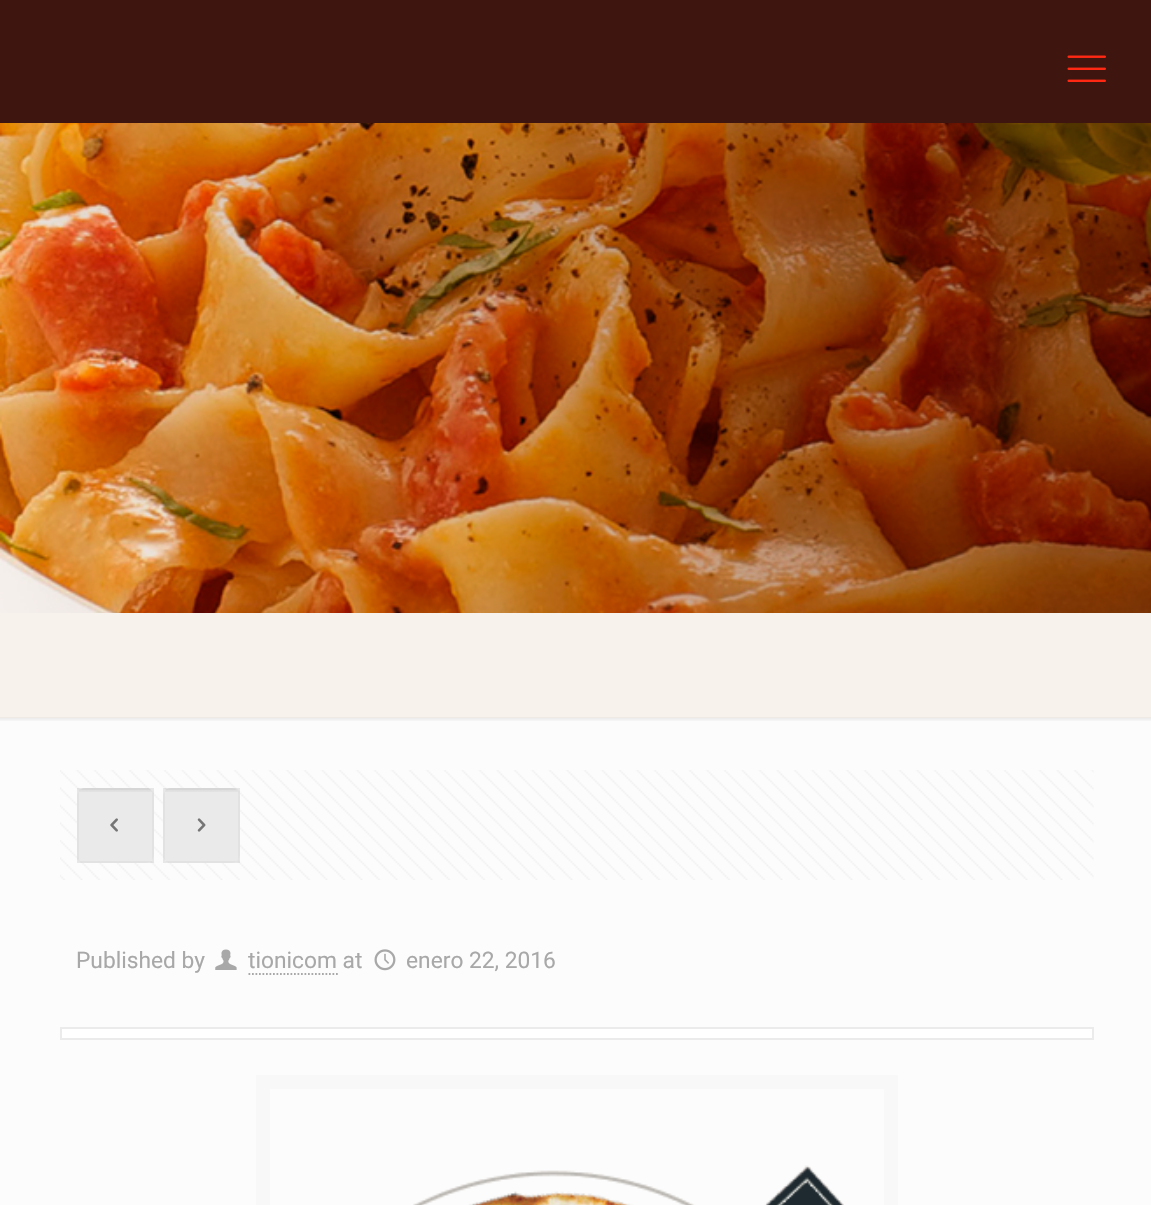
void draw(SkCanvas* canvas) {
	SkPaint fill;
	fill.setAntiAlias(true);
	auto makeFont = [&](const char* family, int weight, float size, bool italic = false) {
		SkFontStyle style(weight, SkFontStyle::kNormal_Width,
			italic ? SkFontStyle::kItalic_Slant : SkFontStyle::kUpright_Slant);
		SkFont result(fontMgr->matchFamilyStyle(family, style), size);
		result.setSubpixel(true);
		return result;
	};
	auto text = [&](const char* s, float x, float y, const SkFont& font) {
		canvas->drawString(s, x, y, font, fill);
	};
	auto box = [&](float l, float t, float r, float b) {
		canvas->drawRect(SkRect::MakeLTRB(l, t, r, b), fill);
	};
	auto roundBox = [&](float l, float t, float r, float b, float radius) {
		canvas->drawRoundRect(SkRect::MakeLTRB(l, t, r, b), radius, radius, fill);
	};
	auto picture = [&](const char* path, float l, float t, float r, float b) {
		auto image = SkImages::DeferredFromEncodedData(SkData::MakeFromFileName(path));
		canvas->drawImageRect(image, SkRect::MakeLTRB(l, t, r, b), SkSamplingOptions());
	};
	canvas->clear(0xFFFCFCFC);
	picture("image0.png", 0, 123, 1151, 613);
	fill.setColor(0xFF3E150F);
	box(0, 0, 1151, 123);
	picture("image1.png", 1067, 55, 1106, 82);
	fill.setColor(0xFFF7F2EC);
	box(0, 613, 1151, 718);
	picture("image2.png", 0, 717, 1151, 721);
	picture("image3.png", 60, 770, 1094, 880);
	fill.setColor(0xFFF7F7F7);
	roundBox(77, 788, 154, 863, 9);
	picture("image4.png", 79, 788, 152, 792);
	fill.setStyle(SkPaint::kStroke_Style);
	fill.setStrokeWidth(2);
	fill.setColor(0x08000000);
	canvas->drawRect(SkRect::MakeLTRB(78, 789, 153, 862), fill);
	fill.setStyle(SkPaint::kFill_Style);
	fill.setColor(0x0D000000);
	box(77, 788, 154, 863);
	picture("image5.png", 110, 818, 118, 832);
	fill.setColor(0xFFF7F7F7);
	roundBox(163, 788, 240, 863, 9);
	picture("image6.png", 165, 788, 238, 792);
	fill.setStyle(SkPaint::kStroke_Style);
	fill.setColor(0x08000000);
	canvas->drawRect(SkRect::MakeLTRB(164, 789, 239, 862), fill);
	fill.setStyle(SkPaint::kFill_Style);
	fill.setColor(0x0D000000);
	box(163, 788, 240, 863);
	picture("image7.png", 197, 818, 206, 832);
	picture("image8.png", 215, 949, 237, 970);
	fill.setStyle(SkPaint::kStroke_Style);
	fill.setStrokeWidth(1.8f);
	fill.setColor(0xFFA8A8A8);
	fill.setPathEffect(SkDashPathEffect::Make({{1.75f, 1.75f}}, 0));
	canvas->drawPath(SkPathBuilder().moveTo(248.5f, 974).lineTo(338, 974).detach(), fill);
	fill.setPathEffect(nullptr);
	picture("image9.png", 374, 949, 396, 971);
	fill.setStyle(SkPaint::kFill_Style);
	fill.setColor(0xFFFFFFFF);
	canvas->drawRect(SkRect::MakeLTRB(61, 1028, 1093, 1039), fill);
	fill.setStyle(SkPaint::kStroke_Style);
	fill.setStrokeWidth(2);
	fill.setColor(0xFFEBEBEB);
	canvas->drawRect(SkRect::MakeLTRB(61, 1028, 1093, 1039), fill);
	fill.setStrokeWidth(14);
	fill.setColor(0xFFF8F8F8);
	canvas->drawRect(SkRect::MakeLTRB(263, 1082, 891, 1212), fill);
	picture("image10.png", 413, 1165, 844, 1205);
	auto font1 = makeFont("Roboto", 400, 22.75f);
	fill.setStyle(SkPaint::kFill_Style);
	fill.setColor(0xFFA8A8A8);
	text("Published by", 76, 968, font1);
	text("tionicom at", 248, 968, font1);
	text("enero 22, 2016", 406, 968, font1);
}
